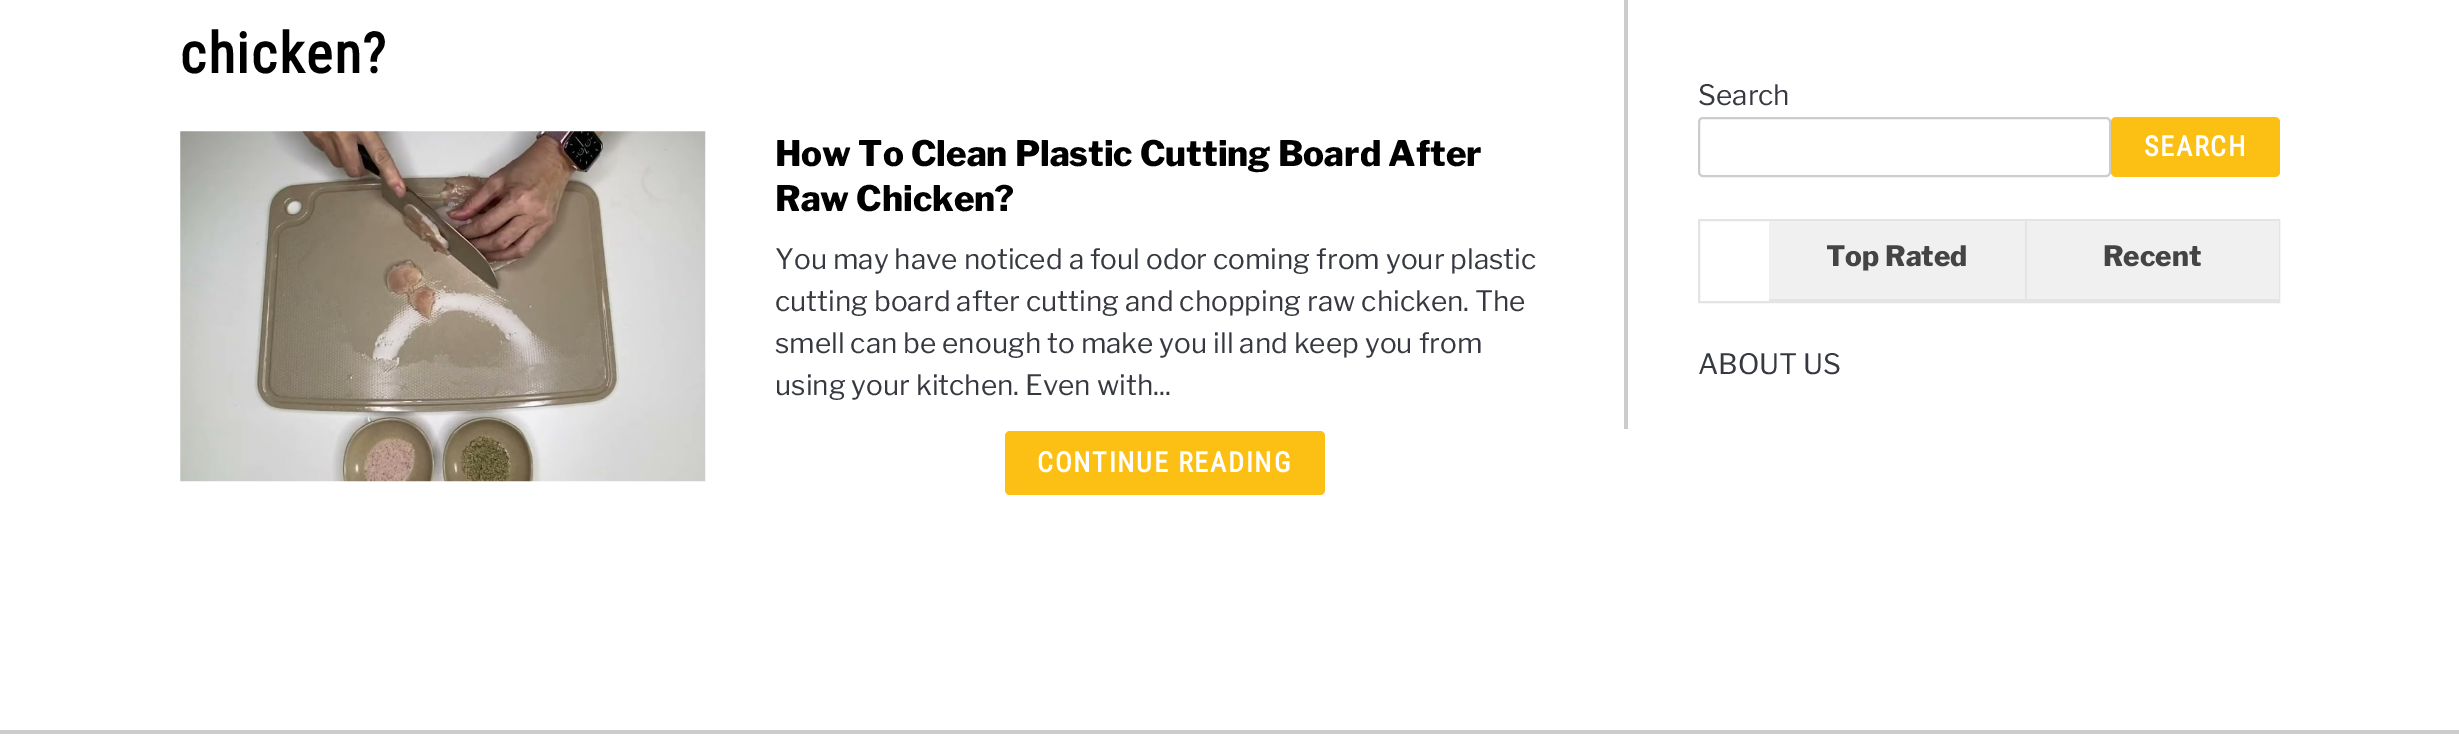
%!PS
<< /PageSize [2459 752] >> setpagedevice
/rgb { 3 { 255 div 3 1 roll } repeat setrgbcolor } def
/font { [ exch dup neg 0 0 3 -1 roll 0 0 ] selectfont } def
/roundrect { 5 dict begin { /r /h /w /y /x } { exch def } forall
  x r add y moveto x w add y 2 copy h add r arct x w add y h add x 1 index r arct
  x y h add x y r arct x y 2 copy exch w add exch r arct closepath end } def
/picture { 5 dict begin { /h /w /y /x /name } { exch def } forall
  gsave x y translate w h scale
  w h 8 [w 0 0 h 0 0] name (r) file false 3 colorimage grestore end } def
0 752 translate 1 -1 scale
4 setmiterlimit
255 255 255 rgb
0 0 2459 752 rectfill
(img/1.rgb) 180 131 526 351 picture
252 191 20 rgb
1005 431 320 64 5 roundrect fill
204 204 204 rgb
1624 0 4 429 rectfill
2 setlinewidth
1699 118 411 58 4 roundrect stroke
252 191 20 rgb
2111 117 169 60 5 roundrect fill
228 228 228 rgb
1699 220 580 82 rectstroke
[
  [1769 221 256 78 240 240 240]
  [1769 299 510 2 228 228 228]
  [2027 221 252 78 240 240 240]
  [2025 221 2 80 228 228 228]
  [0 730 2459 4 204 204 204]
] { aload pop rgb rectfill } forall
/RobotoCondensed-Bold 56 font
0 0 0 rgb
180 73 moveto 1.75 0 (chicken?) ashow
/LibreFranklin-ExtraBold 35 font
775 166 moveto (How To Clean Plastic Cutting Board After) show
775 211 moveto (Raw Chicken?) show
/LibreFranklin-Regular 28 font
54 57 64 rgb
[
  [(You may have noticed a foul odor coming from your plastic) 775 269]
  [(cutting board after cutting and chopping raw chicken. The) 775 311]
  [(smell can be enough to make you ill and keep you from) 775 353]
  [(using your kitchen. Even with...) 775 395]
] { aload pop moveto show } forall
/RobotoCondensed-Bold 28 font
255 255 255 rgb
1037 472 moveto 1.75 0 (CONTINUE READING) ashow
/LibreFranklin-Regular 28 font
54 57 64 rgb
1698 105 moveto (Search) show
/RobotoCondensed-Bold 28 font
255 255 255 rgb
2144 156 moveto 1.75 0 (SEARCH) ashow
/LibreFranklin-ExtraBold 28 font
68 68 68 rgb
1826 266 moveto (Top Rated) show
2103 266 moveto (Recent) show
/LibreFranklin-Regular 28 font
54 57 64 rgb
1698 374 moveto (ABOUT US) show
showpage
